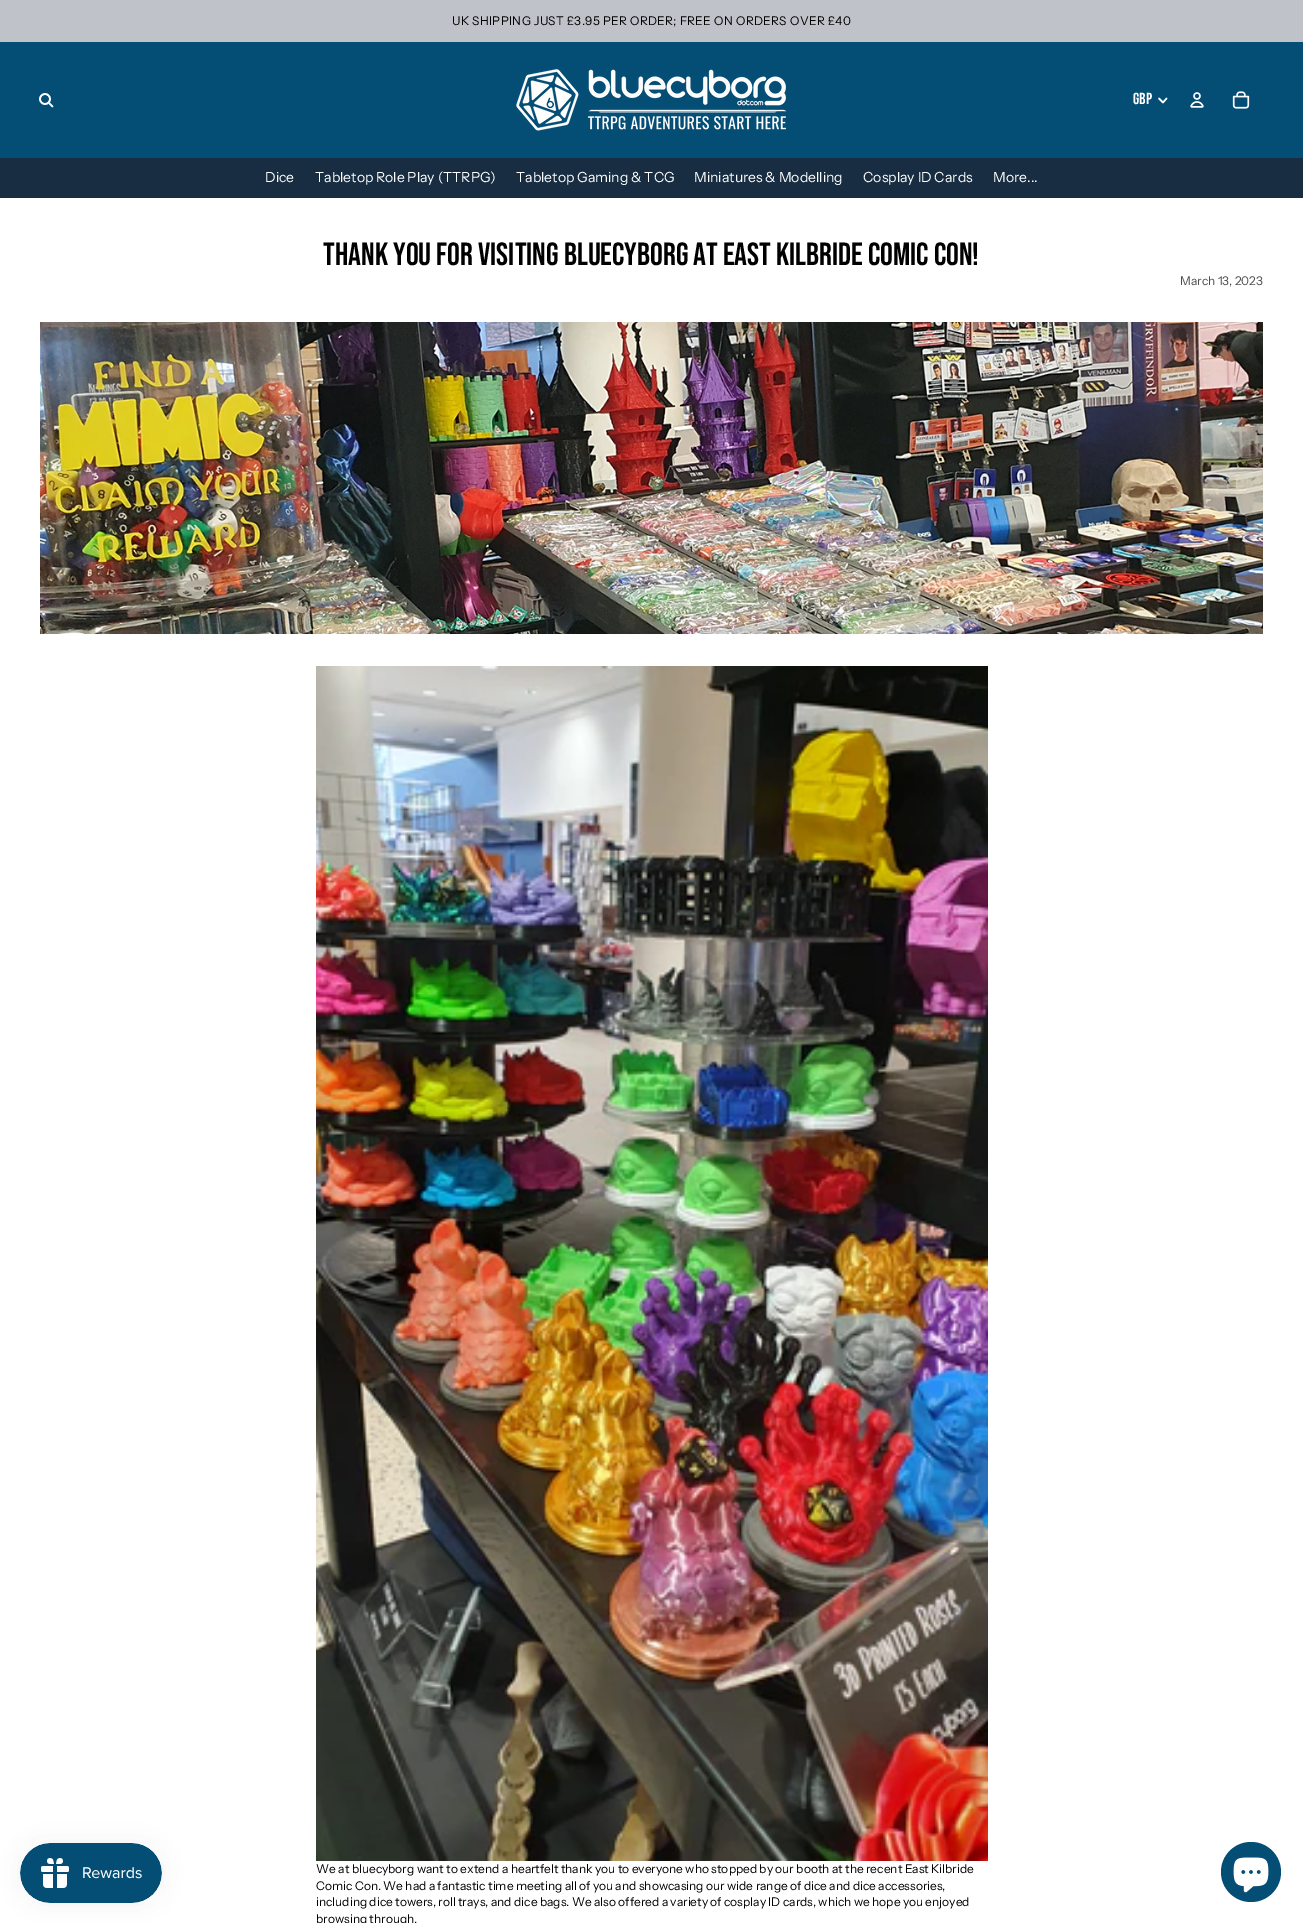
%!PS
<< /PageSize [1303 1923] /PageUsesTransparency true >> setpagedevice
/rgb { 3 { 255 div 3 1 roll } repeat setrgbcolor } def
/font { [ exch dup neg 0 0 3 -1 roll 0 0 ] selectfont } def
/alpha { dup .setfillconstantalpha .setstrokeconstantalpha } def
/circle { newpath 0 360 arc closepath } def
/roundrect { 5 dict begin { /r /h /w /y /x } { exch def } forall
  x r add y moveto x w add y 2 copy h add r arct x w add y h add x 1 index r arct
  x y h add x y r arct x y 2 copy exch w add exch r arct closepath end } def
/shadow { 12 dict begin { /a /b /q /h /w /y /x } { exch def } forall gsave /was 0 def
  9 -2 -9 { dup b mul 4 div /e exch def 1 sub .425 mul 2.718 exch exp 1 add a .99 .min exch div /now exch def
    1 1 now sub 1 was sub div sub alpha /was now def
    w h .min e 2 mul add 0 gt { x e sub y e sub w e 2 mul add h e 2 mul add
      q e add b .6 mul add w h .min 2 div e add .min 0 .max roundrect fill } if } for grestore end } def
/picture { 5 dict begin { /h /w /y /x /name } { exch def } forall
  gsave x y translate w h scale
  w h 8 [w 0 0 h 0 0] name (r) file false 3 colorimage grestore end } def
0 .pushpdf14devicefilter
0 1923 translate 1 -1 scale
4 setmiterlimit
255 255 255 rgb
0 0 1303 1923 rectfill
191 194 201 rgb
0 0 1303 42 rectfill
4 78 118 rgb
0 42 1303 116 rectfill
255 255 255 rgb
1.7 setlinewidth
45 99 5 circle stroke
1 setlinecap
1 setlinejoin
49 103 moveto 52.5 106.5 lineto stroke
(img/1.rgb) 516 69 271 62 picture
1.5 setlinewidth
1166.5 98.5 moveto 1163 102.5 lineto 1159 98.5 lineto stroke
(img/2.rgb) 1190 92 14 16 picture
(img/3.rgb) 1232 91 18 18 picture
24 45 65 rgb
0 158 1303 40 rectfill
0 0 0 rgb
20 1843 142 60 30 12.5 0.05 shadow
(img/4.rgb) 20 1843 142 60 picture
(img/5.rgb) 40 322 1223 312 picture
(img/6.rgb) 316 666 672 1195 picture
4 78 118 rgb
1251 1872 30 circle fill
(img/7.rgb) 1233 1857 36 36 picture
/InstrumentSans-Regular 12 font
0 0 0 rgb
452 25 moveto 0.35 0 (UK SHIPPING JUST £3.95 PER ORDER; FREE ON ORDERS OVER £40) ashow
/BebasNeue-Regular 16 font
255 255 255 rgb
1133 104 moveto (GBP) show
/InstrumentSans-Regular 14 font
[
  [(Dice) 265 182]
  [(Tabletop Role Play \(TTRPG\)) 315 182]
  [(Tabletop Gaming & TCG) 516 182]
  [(Miniatures & Modelling) 694 182]
  [(Cosplay ID Cards) 863 182]
  [(More...) 993 182]
] { aload pop moveto show } forall
/BebasNeue-Regular 32 font
0 0 0 rgb
323 265 moveto (Thank You for Visiting bluecyborg at East Kilbride Comic Con!) show
/InstrumentSans-Regular 12 font
77 77 77 rgb
1180 285 moveto (March 13, 2023) show
0 0 0 rgb
[
  [(We at bluecyborg want to extend a heartfelt thank you to everyone who stopped by our booth at the recent East Kilbride) 316 1873]
  [(Comic Con. We had a fantastic time meeting all of you and showcasing our wide range of dice and dice accessories,) 316 1890]
  [(including dice towers, roll trays, and dice bags. We also offered a variety of cosplay ID cards, which we hope you enjoyed) 316 1906]
  [(browsing through.) 316 1923]
] { aload pop moveto show } forall
.poppdf14devicefilter showpage
